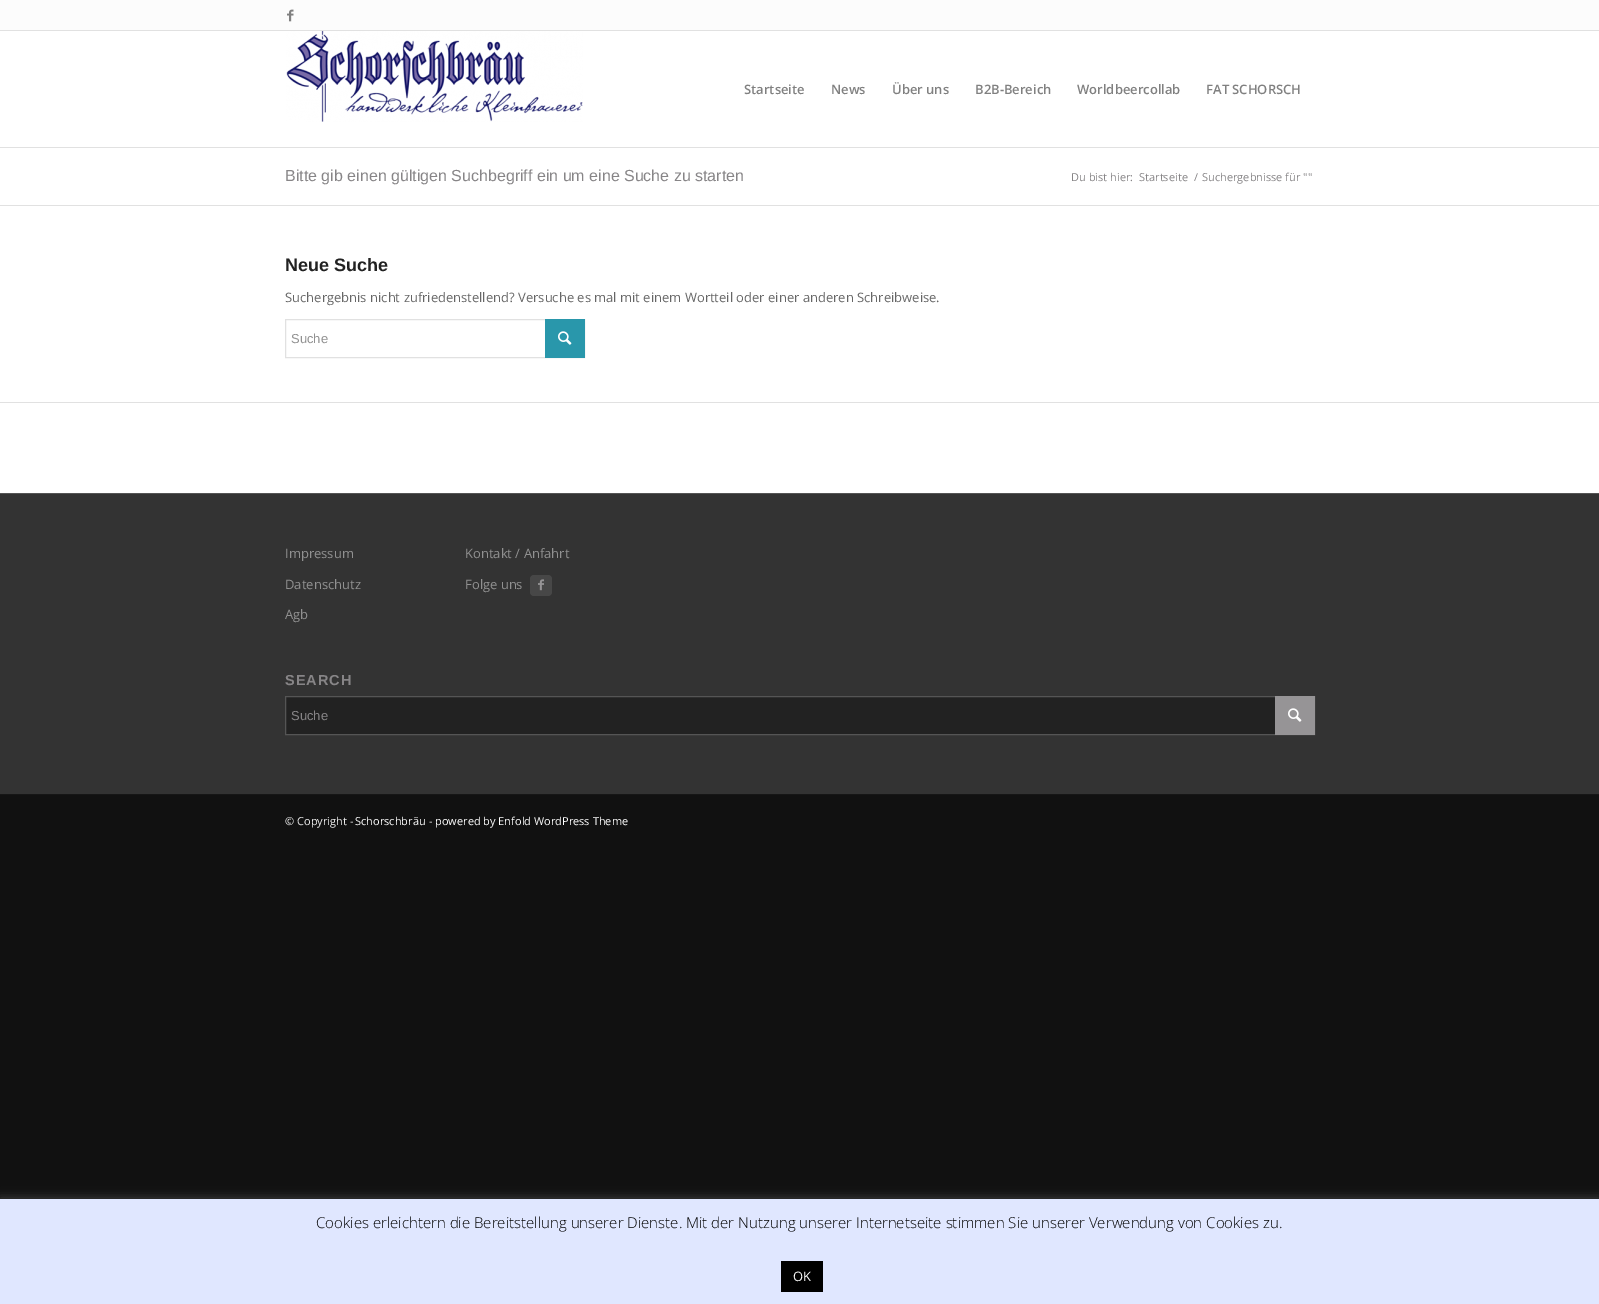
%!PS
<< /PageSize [1599 1304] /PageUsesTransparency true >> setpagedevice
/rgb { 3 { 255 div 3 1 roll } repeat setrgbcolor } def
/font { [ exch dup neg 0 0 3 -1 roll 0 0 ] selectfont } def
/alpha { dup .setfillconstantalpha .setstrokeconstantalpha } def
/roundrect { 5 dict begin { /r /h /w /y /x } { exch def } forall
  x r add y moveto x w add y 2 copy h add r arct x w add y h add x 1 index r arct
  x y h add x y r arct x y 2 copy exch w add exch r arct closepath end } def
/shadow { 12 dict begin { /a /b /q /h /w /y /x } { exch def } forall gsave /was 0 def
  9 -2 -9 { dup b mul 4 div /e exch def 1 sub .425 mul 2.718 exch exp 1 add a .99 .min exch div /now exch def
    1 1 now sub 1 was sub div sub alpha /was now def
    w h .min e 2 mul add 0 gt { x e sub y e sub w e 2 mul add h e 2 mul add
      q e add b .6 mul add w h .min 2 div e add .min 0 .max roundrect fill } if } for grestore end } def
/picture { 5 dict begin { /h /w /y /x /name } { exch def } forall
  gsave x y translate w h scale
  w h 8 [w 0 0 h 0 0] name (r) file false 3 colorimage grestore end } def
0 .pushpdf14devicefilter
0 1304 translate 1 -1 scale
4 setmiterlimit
17 17 17 rgb
0 0 1599 1304 rectfill
252 252 252 rgb
0 0 1599 30 rectfill
225 225 225 rgb
0 30 1599 1 rectfill
(img/1.rgb) 287 9 7 13 picture
0 147 1599 1 rectfill
255 255 255 rgb
0 31 1599 116 rectfill
(img/2.rgb) 286 31 297 91 picture
0 148 1599 345 rectfill
225 225 225 rgb
0 205 1599 1 rectfill
285.5 319.5 299 38 rectstroke
41 151 171 rgb
545 319 40 39 rectfill
(img/3.rgb) 558 331 14 14 picture
[
  [0 402 1599 1 225 225 225]
  [0 494 1599 300 51 51 51]
  [0 493 1599 1 85 85 85]
] { aload pop rgb rectfill } forall
71 71 71 rgb
530 575 22 21 4 roundrect fill
(img/4.rgb) 538 579 6 12 picture
34 34 34 rgb
286 697 989 37 rectfill
85 85 85 rgb
285.5 696.5 1029 38 rectstroke
150 148 150 rgb
1275 696 40 39 rectfill
(img/5.rgb) 1288 708 14 14 picture
22 22 22 rgb
0 794 1599 1 rectfill
172 171 171 rgb
0 1198 1599 105 0 5 0.3 shadow
224 231 255 rgb
0 1199 1599 105 rectfill
0 0 0 rgb
781 1261 42 31 rectfill
/OpenSans-SemiBold 13 font
128 128 128 rgb
[
  [(Startseite) 744 94]
  [(News) 831 94]
  [(Über uns) 892 94]
  [(B2B-Bereich) 975 94]
  [(Worldbeercollab) 1077 94]
  [(FAT SCHORSCH) 1206 94]
] { aload pop moveto show } forall
/LiberationSans-Regular 16 font
135 133 135 rgb
285 181 moveto (Bitte gib einen gültigen Suchbegriff ein um eine Suche zu starten) show
/OpenSans-Regular 11 font
[
  [(Du bist hier:) 1071 181]
  [(Startseite) 1139 181]
  [(/) 1194 181]
  [(Suchergebnisse für "") 1202 181]
] { aload pop moveto show } forall
/LiberationSans-Bold 18 font
34 34 34 rgb
285 271 moveto (Neue Suche) show
/OpenSans-Regular 13 font
102 102 102 rgb
285 302 moveto (Suchergebnis nicht zufriedenstellend? Versuche es mal mit einem Wortteil oder einer anderen Schreibweise.) show
/LiberationSans-Regular 13 font
145 145 145 rgb
291 343 moveto (Suche) show
/OpenSans-Regular 13 font
[
  [(Impressum) 285 558]
  [(Datenschutz) 285 589]
  [(Agb) 285 619]
  [(Kontakt / Anfahrt) 465 558]
  [(Folge uns) 465 589]
] { aload pop moveto show } forall
/LiberationSans-Bold 14.5 font
135 133 135 rgb
285 685 moveto 1 0 (SEARCH) ashow
/LiberationSans-Regular 13 font
291 720 moveto (Suche) show
/OpenSans-Regular 11 font
238 238 238 rgb
285 825 moveto (© Copyright -) show
255 255 255 rgb
355 825 moveto (Schorschbräu) show
238 238 238 rgb
429 825 moveto (-) show
255 255 255 rgb
435 825 moveto (powered by Enfold WordPress Theme) show
/OpenSans-Light 15 font
0 0 0 rgb
316 1228 moveto (Cookies erleichtern die Bereitstellung unserer Dienste. Mit der Nutzung unserer Internetseite stimmen Sie unserer Verwendung von Cookies zu.) show
/OpenSans-Regular 13 font
255 255 255 rgb
793 1281 moveto (OK) show
.poppdf14devicefilter showpage
